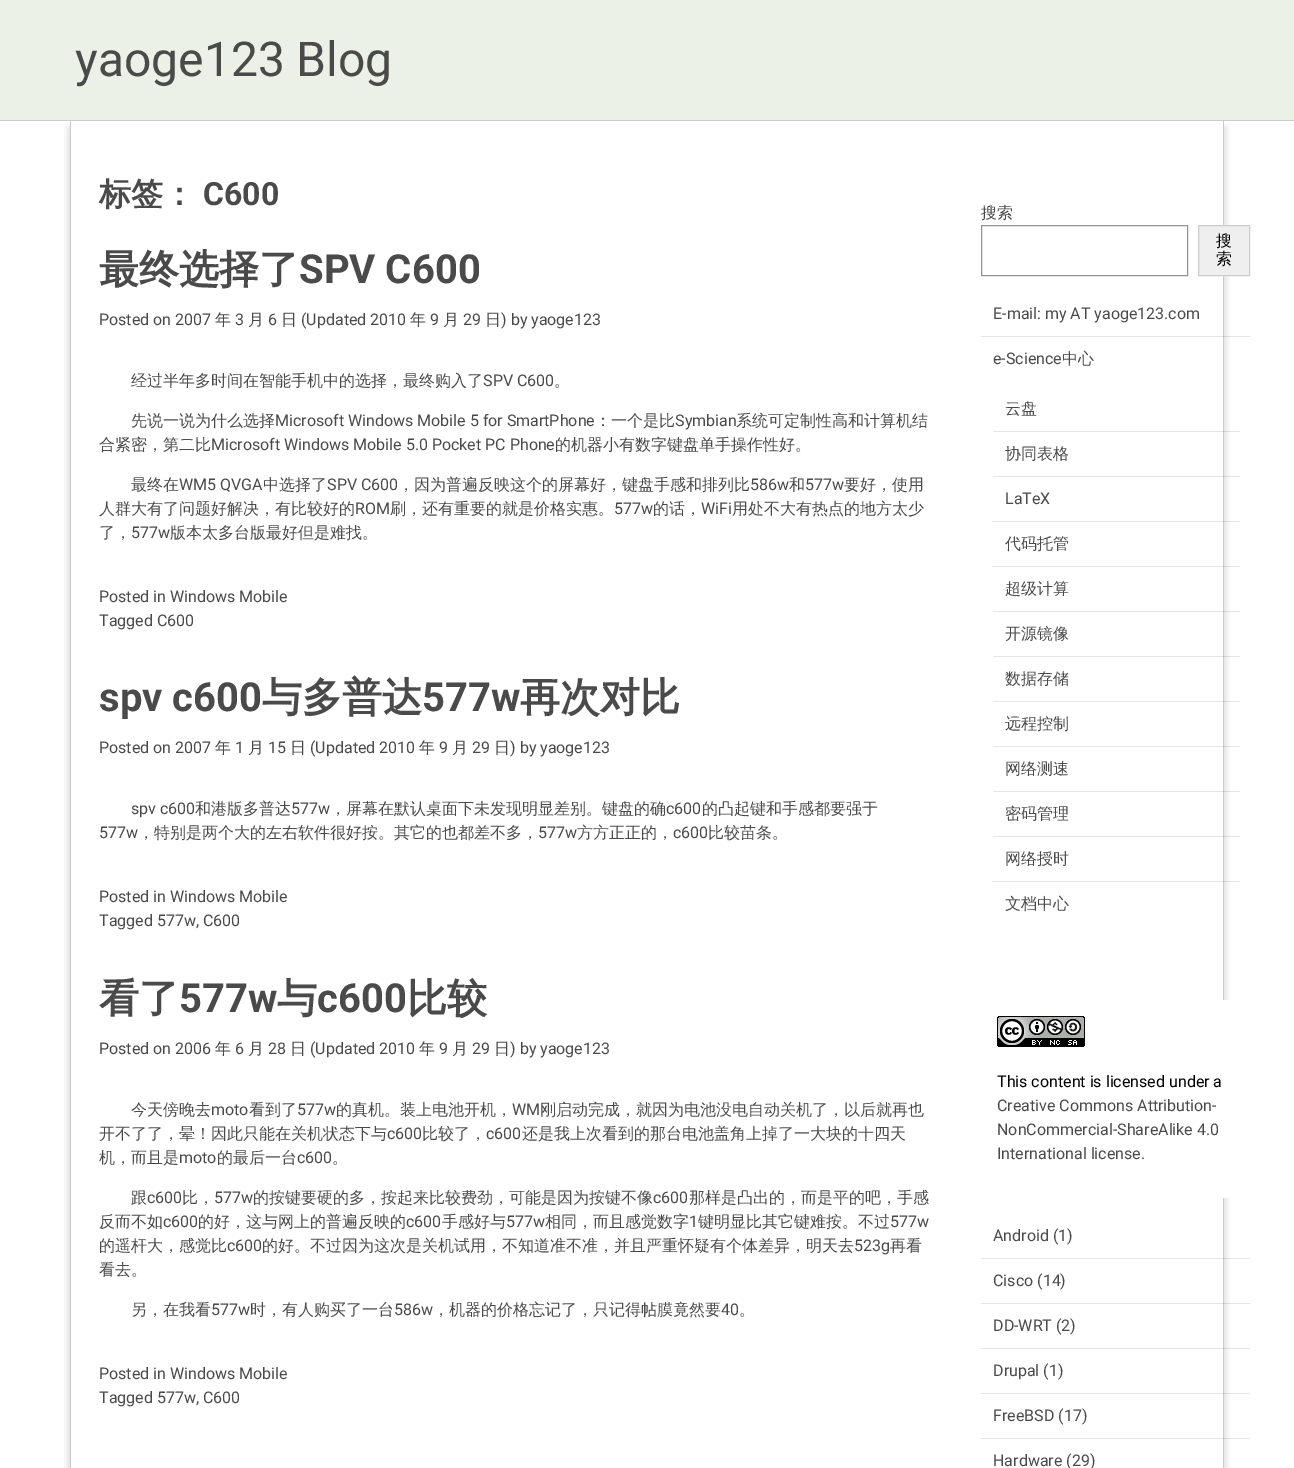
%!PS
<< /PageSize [1294 1468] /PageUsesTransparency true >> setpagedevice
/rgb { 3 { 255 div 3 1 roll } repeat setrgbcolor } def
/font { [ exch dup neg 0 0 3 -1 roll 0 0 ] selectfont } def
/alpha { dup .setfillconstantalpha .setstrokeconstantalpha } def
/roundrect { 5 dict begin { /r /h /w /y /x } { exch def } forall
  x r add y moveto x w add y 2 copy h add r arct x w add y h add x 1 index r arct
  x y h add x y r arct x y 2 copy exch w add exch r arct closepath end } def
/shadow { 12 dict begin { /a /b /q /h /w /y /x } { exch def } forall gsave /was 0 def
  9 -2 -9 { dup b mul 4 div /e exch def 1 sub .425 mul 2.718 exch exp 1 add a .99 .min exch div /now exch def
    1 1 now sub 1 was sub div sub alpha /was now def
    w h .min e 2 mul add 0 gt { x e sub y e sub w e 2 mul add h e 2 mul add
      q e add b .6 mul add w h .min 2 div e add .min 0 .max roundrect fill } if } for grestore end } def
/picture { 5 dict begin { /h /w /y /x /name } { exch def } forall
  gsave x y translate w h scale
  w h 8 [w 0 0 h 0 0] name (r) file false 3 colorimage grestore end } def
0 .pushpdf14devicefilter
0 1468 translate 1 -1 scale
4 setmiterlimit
255 255 255 rgb
0 0 1294 1468 rectfill
235 241 231 rgb
0 0 1294 120 rectfill
204 204 204 rgb
0 120 1294 1 rectfill
gsave
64 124 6 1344 rectclip
1 1 1 rgb
71 128 1140 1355 0 5 0.25 shadow
grestore
gsave
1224 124 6 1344 rectclip
1 1 1 rgb
83 128 1140 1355 0 5 0.25 shadow
grestore
1223 121 1 1347 rectfill
70 121 1 1347 rectfill
148 148 148 rgb
981.5 225.5 206 50 rectstroke
239 239 239 rgb
1198.5 225.5 moveto 1249.5 225.5 lineto 1249.5 275.5 lineto 1198.5 275.5 lineto closepath gsave fill grestore
204 204 204 rgb
stroke
0.1 alpha
[
  [981 336 269 1 0 0 0]
  [993 431 247 1 0 0 0]
  [993 476 247 1 0 0 0]
  [993 521 247 1 0 0 0]
  [993 566 247 1 0 0 0]
  [993 611 247 1 0 0 0]
  [993 656 247 1 0 0 0]
  [993 701 247 1 0 0 0]
  [993 746 247 1 0 0 0]
  [993 791 247 1 0 0 0]
  [993 836 247 1 0 0 0]
  [993 881 247 1 0 0 0]
] { aload pop rgb rectfill } forall
1 alpha
[
  [1223 1000 9 198 255 255 255]
] { aload pop rgb rectfill } forall
(img/1.rgb) 997 1016 88 31 picture
0.1 alpha
[
  [981 1258 269 1 0 0 0]
  [981 1303 269 1 0 0 0]
  [981 1348 269 1 0 0 0]
  [981 1393 269 1 0 0 0]
  [981 1438 269 1 0 0 0]
] { aload pop rgb rectfill } forall
/Roboto-Regular 48 font
1 alpha
74 74 74 rgb
75 76 moveto (yaoge123 Blog) show
/WenQuanYiZenHei-Bold 32 font
99 205 moveto (标签：) show
/Roboto-Bold 32 font
203 205 moveto (C600) show
/WenQuanYiZenHei-Bold 40 font
99 283 moveto (最终选择了) show
/Roboto-Bold 40 font
299 283 moveto (SPV C600) show
/Roboto-Regular 16 font
99 325 moveto (Posted on 2007) show
/WenQuanYiZenHei-Medium 16 font
215 325 moveto (年) show
/Roboto-Regular 16 font
235 325 moveto (3) show
/WenQuanYiZenHei-Medium 16 font
248 325 moveto (月) show
/Roboto-Regular 16 font
268 325 moveto (6) show
/WenQuanYiZenHei-Medium 16 font
281 325 moveto (日) show
/Roboto-Regular 16 font
301 325 moveto (\(Updated 2010) show
/WenQuanYiZenHei-Medium 16 font
410 325 moveto (年) show
/Roboto-Regular 16 font
430 325 moveto (9) show
/WenQuanYiZenHei-Medium 16 font
443 325 moveto (月) show
/Roboto-Regular 16 font
463 325 moveto (29) show
/WenQuanYiZenHei-Medium 16 font
485 325 moveto (日) show
/Roboto-Regular 16 font
501 325 moveto (\) by yaoge123) show
/WenQuanYiZenHei-Medium 16 font
131 386 moveto (经过半年多时间在智能手机中的选择，最终购入了) show
/Roboto-Regular 16 font
483 386 moveto (SPV C600) show
/WenQuanYiZenHei-Medium 16 font
554 386 moveto (。) show
131 426 moveto (先说一说为什么选择) show
/Roboto-Regular 16 font
275 426 moveto (Microsoft Windows Mobile 5 for SmartPhone) show
/WenQuanYiZenHei-Medium 16 font
595 426 moveto (：一个是比) show
/Roboto-Regular 16 font
675 426 moveto (Symbian) show
/WenQuanYiZenHei-Medium 16 font
736 426 moveto (系统可定制性高和计算机结) show
99 450 moveto (合紧密，第二比) show
/Roboto-Regular 16 font
211 450 moveto (Microsoft Windows Mobile 5.0 Pocket PC Phone) show
/WenQuanYiZenHei-Medium 16 font
555 450 moveto (的机器小有数字键盘单手操作性好。) show
131 490 moveto (最终在) show
/Roboto-Regular 16 font
179 490 moveto (WM5 QVGA) show
/WenQuanYiZenHei-Medium 16 font
263 490 moveto (中选择了) show
/Roboto-Regular 16 font
327 490 moveto (SPV C600) show
/WenQuanYiZenHei-Medium 16 font
398 490 moveto (，因为普遍反映这个的屏幕好，键盘手感和排列比) show
/Roboto-Regular 16 font
750 490 moveto (586w) show
/WenQuanYiZenHei-Medium 16 font
789 490 moveto (和) show
/Roboto-Regular 16 font
805 490 moveto (577w) show
/WenQuanYiZenHei-Medium 16 font
844 490 moveto (要好，使用) show
99 514 moveto (人群大有了问题好解决，有比较好的) show
/Roboto-Regular 16 font
355 514 moveto (ROM) show
/WenQuanYiZenHei-Medium 16 font
390 514 moveto (刷，还有重要的就是价格实惠。) show
/Roboto-Regular 16 font
614 514 moveto (577w) show
/WenQuanYiZenHei-Medium 16 font
653 514 moveto (的话，) show
/Roboto-Regular 16 font
701 514 moveto (WiFi) show
/WenQuanYiZenHei-Medium 16 font
732 514 moveto (用处不大有热点的地方太少) show
99 538 moveto (了，) show
/Roboto-Regular 16 font
131 538 moveto (577w) show
/WenQuanYiZenHei-Medium 16 font
170 538 moveto (版本太多台版最好但是难找。) show
/Roboto-Regular 16 font
99 602 moveto (Posted in Windows Mobile) show
99 626 moveto (Tagged C600) show
/Roboto-Bold 40 font
99 711 moveto (spv c600) show
/WenQuanYiZenHei-Bold 40 font
262 711 moveto (与多普达) show
/Roboto-Bold 40 font
422 711 moveto (577w) show
/WenQuanYiZenHei-Bold 40 font
520 711 moveto (再次对比) show
/Roboto-Regular 16 font
99 753 moveto (Posted on 2007) show
/WenQuanYiZenHei-Medium 16 font
215 753 moveto (年) show
/Roboto-Regular 16 font
235 753 moveto (1) show
/WenQuanYiZenHei-Medium 16 font
248 753 moveto (月) show
/Roboto-Regular 16 font
268 753 moveto (15) show
/WenQuanYiZenHei-Medium 16 font
290 753 moveto (日) show
/Roboto-Regular 16 font
310 753 moveto (\(Updated 2010) show
/WenQuanYiZenHei-Medium 16 font
419 753 moveto (年) show
/Roboto-Regular 16 font
439 753 moveto (9) show
/WenQuanYiZenHei-Medium 16 font
452 753 moveto (月) show
/Roboto-Regular 16 font
472 753 moveto (29) show
/WenQuanYiZenHei-Medium 16 font
494 753 moveto (日) show
/Roboto-Regular 16 font
510 753 moveto (\) by yaoge123) show
131 814 moveto (spv c600) show
/WenQuanYiZenHei-Medium 16 font
195 814 moveto (和港版多普达) show
/Roboto-Regular 16 font
291 814 moveto (577w) show
/WenQuanYiZenHei-Medium 16 font
330 814 moveto (，屏幕在默认桌面下未发现明显差别。键盘的确) show
/Roboto-Regular 16 font
666 814 moveto (c600) show
/WenQuanYiZenHei-Medium 16 font
702 814 moveto (的凸起键和手感都要强于) show
/Roboto-Regular 16 font
99 838 moveto (577w) show
/WenQuanYiZenHei-Medium 16 font
138 838 moveto (，特别是两个大的左右软件很好按。其它的也都差不多，) show
/Roboto-Regular 16 font
538 838 moveto (577w) show
/WenQuanYiZenHei-Medium 16 font
577 838 moveto (方方正正的，) show
/Roboto-Regular 16 font
673 838 moveto (c600) show
/WenQuanYiZenHei-Medium 16 font
708 838 moveto (比较苗条。) show
/Roboto-Regular 16 font
99 902 moveto (Posted in Windows Mobile) show
99 926 moveto (Tagged 577w, C600) show
/WenQuanYiZenHei-Bold 40 font
99 1012 moveto (看了) show
/Roboto-Bold 40 font
179 1012 moveto (577w) show
/WenQuanYiZenHei-Bold 40 font
277 1012 moveto (与) show
/Roboto-Bold 40 font
317 1012 moveto (c600) show
/WenQuanYiZenHei-Bold 40 font
407 1012 moveto (比较) show
/Roboto-Regular 16 font
99 1054 moveto (Posted on 2006) show
/WenQuanYiZenHei-Medium 16 font
215 1054 moveto (年) show
/Roboto-Regular 16 font
235 1054 moveto (6) show
/WenQuanYiZenHei-Medium 16 font
248 1054 moveto (月) show
/Roboto-Regular 16 font
268 1054 moveto (28) show
/WenQuanYiZenHei-Medium 16 font
290 1054 moveto (日) show
/Roboto-Regular 16 font
310 1054 moveto (\(Updated 2010) show
/WenQuanYiZenHei-Medium 16 font
419 1054 moveto (年) show
/Roboto-Regular 16 font
439 1054 moveto (9) show
/WenQuanYiZenHei-Medium 16 font
452 1054 moveto (月) show
/Roboto-Regular 16 font
472 1054 moveto (29) show
/WenQuanYiZenHei-Medium 16 font
494 1054 moveto (日) show
/Roboto-Regular 16 font
510 1054 moveto (\) by yaoge123) show
/WenQuanYiZenHei-Medium 16 font
131 1115 moveto (今天傍晚去) show
/Roboto-Regular 16 font
211 1115 moveto (moto) show
/WenQuanYiZenHei-Medium 16 font
249 1115 moveto (看到了) show
/Roboto-Regular 16 font
297 1115 moveto (577w) show
/WenQuanYiZenHei-Medium 16 font
336 1115 moveto (的真机。装上电池开机，) show
/Roboto-Regular 16 font
512 1115 moveto (WM) show
/WenQuanYiZenHei-Medium 16 font
540 1115 moveto (刚启动完成，就因为电池没电自动关机了，以后就再也) show
99 1139 moveto (开不了了，晕！因此只能在关机状态下与) show
/Roboto-Regular 16 font
387 1139 moveto (c600) show
/WenQuanYiZenHei-Medium 16 font
422 1139 moveto (比较了，) show
/Roboto-Regular 16 font
486 1139 moveto (c600) show
/WenQuanYiZenHei-Medium 16 font
522 1139 moveto (还是我上次看到的那台电池盖角上掉了一大块的十四天) show
99 1163 moveto (机，而且是) show
/Roboto-Regular 16 font
179 1163 moveto (moto) show
/WenQuanYiZenHei-Medium 16 font
217 1163 moveto (的最后一台) show
/Roboto-Regular 16 font
297 1163 moveto (c600) show
/WenQuanYiZenHei-Medium 16 font
332 1163 moveto (。) show
131 1203 moveto (跟) show
/Roboto-Regular 16 font
147 1203 moveto (c600) show
/WenQuanYiZenHei-Medium 16 font
182 1203 moveto (比，) show
/Roboto-Regular 16 font
214 1203 moveto (577w) show
/WenQuanYiZenHei-Medium 16 font
253 1203 moveto (的按键要硬的多，按起来比较费劲，可能是因为按键不像) show
/Roboto-Regular 16 font
653 1203 moveto (c600) show
/WenQuanYiZenHei-Medium 16 font
689 1203 moveto (那样是凸出的，而是平的吧，手感) show
99 1227 moveto (反而不如) show
/Roboto-Regular 16 font
163 1227 moveto (c600) show
/WenQuanYiZenHei-Medium 16 font
198 1227 moveto (的好，这与网上的普遍反映的) show
/Roboto-Regular 16 font
406 1227 moveto (c600) show
/WenQuanYiZenHei-Medium 16 font
442 1227 moveto (手感好与) show
/Roboto-Regular 16 font
506 1227 moveto (577w) show
/WenQuanYiZenHei-Medium 16 font
545 1227 moveto (相同，而且感觉数字) show
/Roboto-Regular 16 font
689 1227 moveto (1) show
/WenQuanYiZenHei-Medium 16 font
698 1227 moveto (键明显比其它键难按。不过) show
/Roboto-Regular 16 font
890 1227 moveto (577w) show
/WenQuanYiZenHei-Medium 16 font
99 1251 moveto (的遥杆大，感觉比) show
/Roboto-Regular 16 font
227 1251 moveto (c600) show
/WenQuanYiZenHei-Medium 16 font
262 1251 moveto (的好。不过因为这次是关机试用，不知道准不准，并且严重怀疑有个体差异，明天去) show
/Roboto-Regular 16 font
854 1251 moveto (523g) show
/WenQuanYiZenHei-Medium 16 font
[
  [(再看) 890 1251]
  [(看去。) 99 1275]
  [(另，在我看) 131 1315]
] { aload pop moveto show } forall
/Roboto-Regular 16 font
211 1315 moveto (577w) show
/WenQuanYiZenHei-Medium 16 font
250 1315 moveto (时，有人购买了一台) show
/Roboto-Regular 16 font
394 1315 moveto (586w) show
/WenQuanYiZenHei-Medium 16 font
433 1315 moveto (，机器的价格忘记了，只记得帖膜竟然要) show
/Roboto-Regular 16 font
721 1315 moveto (40) show
/WenQuanYiZenHei-Medium 16 font
739 1315 moveto (。) show
/Roboto-Regular 16 font
99 1379 moveto (Posted in Windows Mobile) show
99 1403 moveto (Tagged 577w, C600) show
/WenQuanYiZenHei-Medium 16 font
981 218 moveto (搜索) show
0 0 0 rgb
1216 246 moveto (搜) show
1216 264 moveto (索) show
/Roboto-Regular 16 font
74 74 74 rgb
993 319 moveto (E-mail: my AT yaoge123.com) show
993 364 moveto (e-Science) show
/WenQuanYiZenHei-Medium 16 font
[
  [(中心) 1062 364]
  [(云盘) 1005 414]
  [(协同表格) 1005 459]
] { aload pop moveto show } forall
/Roboto-Regular 16 font
1005 504 moveto (LaTeX) show
/WenQuanYiZenHei-Medium 16 font
[
  [(代码托管) 1005 549]
  [(超级计算) 1005 594]
  [(开源镜像) 1005 639]
  [(数据存储) 1005 684]
  [(远程控制) 1005 729]
  [(网络测速) 1005 774]
  [(密码管理) 1005 819]
  [(网络授时) 1005 864]
  [(文档中心) 1005 909]
] { aload pop moveto show } forall
/Roboto-Regular 16 font
0 0 0 rgb
997 1087 moveto (This content is licensed under a) show
74 74 74 rgb
[
  [(Creative Commons Attribution-) 997 1111]
  [(NonCommercial-ShareAlike 4.0) 997 1135]
  [(International license.) 997 1159]
  [(Android \(1\)) 993 1241]
  [(Cisco \(14\)) 993 1286]
  [(DD-WRT \(2\)) 993 1331]
  [(Drupal \(1\)) 993 1376]
  [(FreeBSD \(17\)) 993 1421]
  [(Hardware \(29\)) 993 1466]
] { aload pop moveto show } forall
.poppdf14devicefilter showpage
